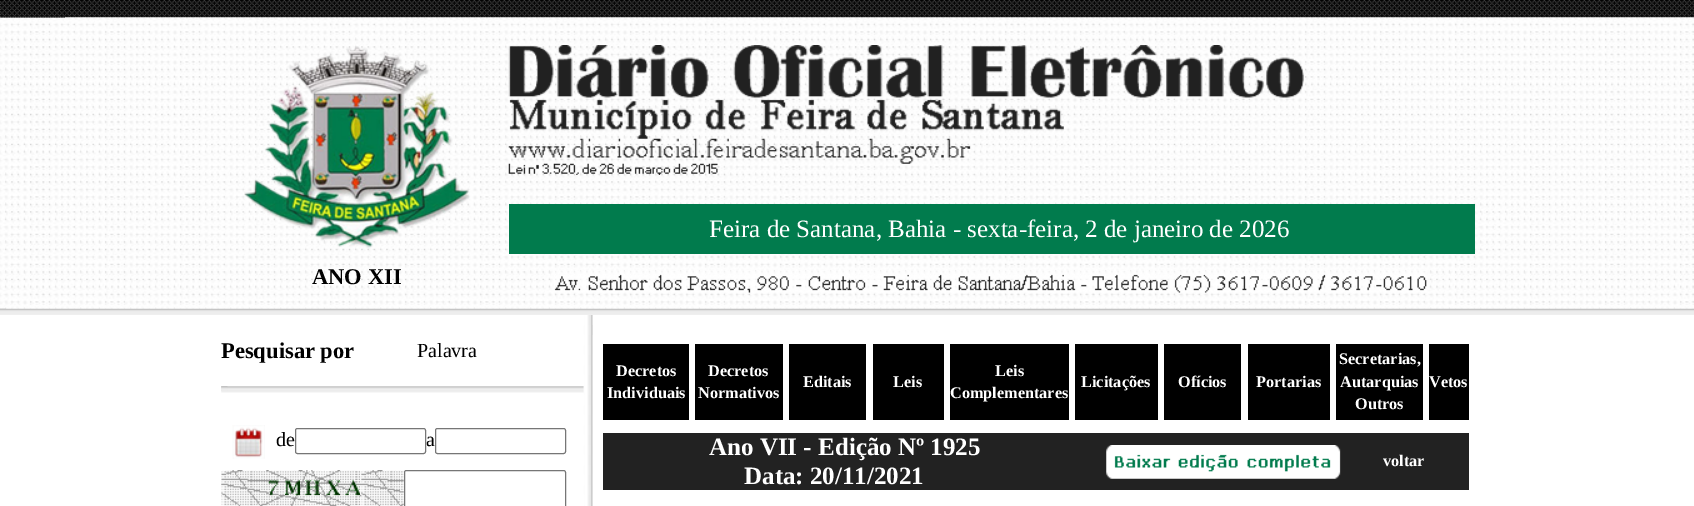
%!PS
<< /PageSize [1694 506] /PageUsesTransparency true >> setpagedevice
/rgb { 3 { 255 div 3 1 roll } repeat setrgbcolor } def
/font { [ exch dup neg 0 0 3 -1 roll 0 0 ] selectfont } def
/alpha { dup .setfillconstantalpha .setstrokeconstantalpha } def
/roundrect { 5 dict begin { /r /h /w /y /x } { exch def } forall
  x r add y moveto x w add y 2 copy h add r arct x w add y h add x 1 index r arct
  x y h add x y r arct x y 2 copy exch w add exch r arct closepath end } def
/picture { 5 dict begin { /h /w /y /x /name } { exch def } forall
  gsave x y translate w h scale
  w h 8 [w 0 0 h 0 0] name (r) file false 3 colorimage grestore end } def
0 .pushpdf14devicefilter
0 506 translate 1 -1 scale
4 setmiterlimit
255 255 255 rgb
0 0 1694 506 rectfill
(img/1.rgb) 0 0 1694 18 picture
(img/3.rgb) 0 17 1694 292 picture
(img/2.rgb) 0 0 65 18 picture
(img/4.rgb) 508 45 796 130 picture
1 123 77 rgb
509 204 966 50 rectfill
(img/5.rgb) 554 271 873 22 picture
(img/6.rgb) 244 46 226 203 picture
(img/7.rgb) 0 308 1694 7 picture
0.25 alpha
191 191 191 rgb
0 308 6 1 rectfill
1 alpha
(img/8.rgb) 221 386 363 7 picture
(img/9.rgb) 221 386 7 5 picture
(img/10.rgb) 232 425 33 34 picture
118 118 118 rgb
295.5 428.5 130 25 2 roundrect stroke
435.5 428.5 130 25 2 roundrect stroke
(img/11.rgb) 221 470 183 36 picture
(img/12.rgb) 268 479 11 17 picture
(img/13.rgb) 285 479 15 17 picture
(img/14.rgb) 305 479 15 17 picture
(img/15.rgb) 326 479 14 17 picture
(img/16.rgb) 345 479 15 17 picture
404.5 470.5 161 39 2 roundrect stroke
(img/17.rgb) 583 315 10 191 picture
[
  [592 325 1 10 218 218 218]
  [603 344 86 76 0 0 0]
  [695 344 88 76 0 0 0]
  [789 344 77 76 0 0 0]
  [873 344 71 76 0 0 0]
  [950 344 119 76 0 0 0]
  [1075 344 83 76 0 0 0]
  [1164 344 77 76 0 0 0]
  [1248 344 82 76 0 0 0]
  [1336 344 87 76 0 0 0]
  [1429 344 40 76 0 0 0]
  [603 433 866 57 34 34 34]
] { aload pop rgb rectfill } forall
(img/18.rgb) 1106 445 235 34 picture
/LiberationSerif-Regular 25 font
255 255 255 rgb
709 237 moveto (Feira de Santana, Bahia - sexta-feira, 2 de janeiro de 2026) show
/LiberationSerif-Bold 22.5 font
0 0 0 rgb
312 284 moveto (ANO XII) show
221 358 moveto (Pesquisar por) show
/LiberationSerif-Regular 20 font
[
  [(Palavra) 417 357]
  [(de) 276 446]
  [(a) 426 446]
] { aload pop moveto show } forall
/LiberationSerif-Bold 16.25 font
255 255 255 rgb
[
  [(Decretos) 616 376]
  [(Individuais) 607 398]
  [(Decretos) 708 376]
  [(Normativos) 698 398]
  [(Editais) 803 387]
  [(Leis) 893 387]
  [(Leis) 995 376]
  [(Complementares) 950 398]
  [(Licitações) 1081 387]
  [(Ofícios) 1178 387]
  [(Portarias) 1256 387]
  [(Secretarias,) 1339 364]
  [(Autarquias) 1340 387]
  [(Outros) 1355 409]
  [(Vetos) 1429 387]
] { aload pop moveto show } forall
/LiberationSerif-Bold 25 font
709 455 moveto (Ano VII - Edição Nº 1925) show
744 484 moveto (Data: 20/11/2021) show
/LiberationSerif-Bold 16.25 font
1383 466 moveto (voltar) show
.poppdf14devicefilter showpage
